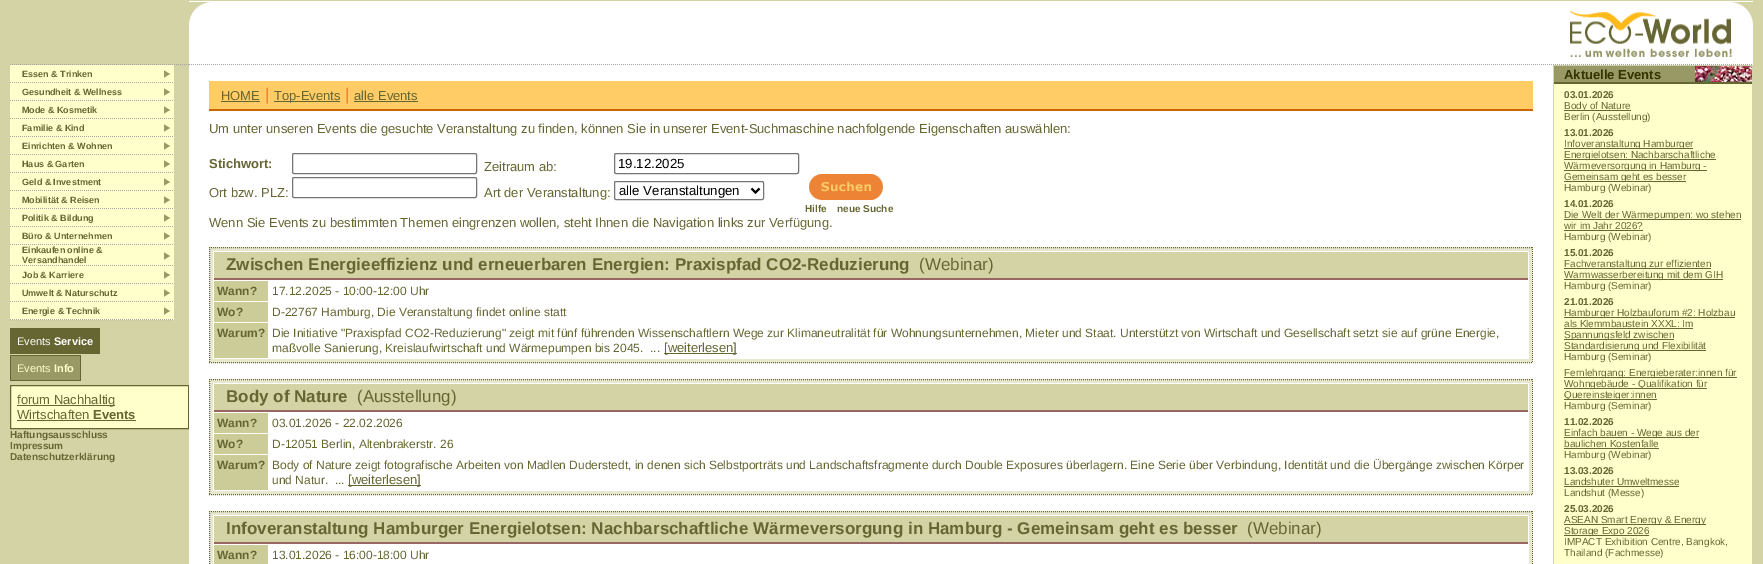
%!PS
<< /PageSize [1763 564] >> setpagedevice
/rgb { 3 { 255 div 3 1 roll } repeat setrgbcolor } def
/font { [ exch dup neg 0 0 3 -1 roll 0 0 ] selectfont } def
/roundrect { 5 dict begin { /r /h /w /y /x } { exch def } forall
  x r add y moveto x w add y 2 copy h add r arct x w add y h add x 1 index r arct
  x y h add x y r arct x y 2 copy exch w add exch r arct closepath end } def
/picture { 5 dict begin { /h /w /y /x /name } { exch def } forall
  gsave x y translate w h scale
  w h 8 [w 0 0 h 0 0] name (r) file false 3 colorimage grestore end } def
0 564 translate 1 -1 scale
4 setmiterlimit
211 211 166 rgb
0 0 1763 564 rectfill
166 166 166 rgb
[1 1] 0 setdash
10 64.5 moveto 189 64.5 lineto stroke
255 255 255 rgb
189 1 1564 64 rectfill
166 166 166 rgb
189 64.5 moveto 1753 64.5 lineto stroke
211 211 166 rgb
189 2 16 16 rectfill
(img/1.rgb) 189 2 24 62 picture
(img/2.rgb) 1570 11 162 46 picture
(img/3.rgb) 1732 2 21 22 picture
255 255 204 rgb
10 65 164 18 rectfill
166 166 166 rgb
10 82.5 moveto 22 82.5 lineto stroke
22 82.5 moveto 164 82.5 lineto stroke
164 82.5 moveto 174 82.5 lineto stroke
(img/4.rgb) 164 70 7 8 picture
255 255 204 rgb
10 83 164 18 rectfill
166 166 166 rgb
10 100.5 moveto 22 100.5 lineto stroke
22 100.5 moveto 164 100.5 lineto stroke
164 100.5 moveto 174 100.5 lineto stroke
(img/4.rgb) 164 88 7 8 picture
255 255 204 rgb
10 101 164 18 rectfill
166 166 166 rgb
10 118.5 moveto 22 118.5 lineto stroke
22 118.5 moveto 164 118.5 lineto stroke
164 118.5 moveto 174 118.5 lineto stroke
(img/4.rgb) 164 106 7 8 picture
255 255 204 rgb
10 119 164 18 rectfill
166 166 166 rgb
10 136.5 moveto 22 136.5 lineto stroke
22 136.5 moveto 164 136.5 lineto stroke
164 136.5 moveto 174 136.5 lineto stroke
(img/4.rgb) 164 124 7 8 picture
255 255 204 rgb
10 137 164 18 rectfill
166 166 166 rgb
10 154.5 moveto 22 154.5 lineto stroke
22 154.5 moveto 164 154.5 lineto stroke
164 154.5 moveto 174 154.5 lineto stroke
(img/4.rgb) 164 142 7 8 picture
255 255 204 rgb
10 155 164 18 rectfill
166 166 166 rgb
10 172.5 moveto 22 172.5 lineto stroke
22 172.5 moveto 164 172.5 lineto stroke
164 172.5 moveto 174 172.5 lineto stroke
(img/4.rgb) 164 160 7 8 picture
255 255 204 rgb
10 173 164 18 rectfill
166 166 166 rgb
10 190.5 moveto 22 190.5 lineto stroke
22 190.5 moveto 164 190.5 lineto stroke
164 190.5 moveto 174 190.5 lineto stroke
(img/4.rgb) 164 178 7 8 picture
255 255 204 rgb
10 191 164 18 rectfill
166 166 166 rgb
10 208.5 moveto 22 208.5 lineto stroke
22 208.5 moveto 164 208.5 lineto stroke
164 208.5 moveto 174 208.5 lineto stroke
(img/4.rgb) 164 196 7 8 picture
255 255 204 rgb
10 209 164 18 rectfill
166 166 166 rgb
10 226.5 moveto 22 226.5 lineto stroke
22 226.5 moveto 164 226.5 lineto stroke
164 226.5 moveto 174 226.5 lineto stroke
(img/4.rgb) 164 214 7 8 picture
255 255 204 rgb
10 227 164 18 rectfill
166 166 166 rgb
10 244.5 moveto 22 244.5 lineto stroke
22 244.5 moveto 164 244.5 lineto stroke
164 244.5 moveto 174 244.5 lineto stroke
(img/4.rgb) 164 232 7 8 picture
255 255 204 rgb
10 245 164 21 rectfill
166 166 166 rgb
10 265.5 moveto 22 265.5 lineto stroke
22 265.5 moveto 164 265.5 lineto stroke
164 265.5 moveto 174 265.5 lineto stroke
(img/4.rgb) 164 252 7 8 picture
255 255 204 rgb
10 266 164 18 rectfill
166 166 166 rgb
10 283.5 moveto 22 283.5 lineto stroke
22 283.5 moveto 164 283.5 lineto stroke
164 283.5 moveto 174 283.5 lineto stroke
(img/4.rgb) 164 271 7 8 picture
255 255 204 rgb
10 284 164 18 rectfill
166 166 166 rgb
10 301.5 moveto 22 301.5 lineto stroke
22 301.5 moveto 164 301.5 lineto stroke
164 301.5 moveto 174 301.5 lineto stroke
(img/4.rgb) 164 289 7 8 picture
255 255 204 rgb
10 302 164 18 rectfill
166 166 166 rgb
10 319.5 moveto 22 319.5 lineto stroke
22 319.5 moveto 164 319.5 lineto stroke
164 319.5 moveto 174 319.5 lineto stroke
(img/4.rgb) 164 307 7 8 picture
[
  [10 328 90 26 102 102 51]
  [11 356 69 24 153 153 102]
  [10 355 71 1 102 102 51]
  [10 380 44 1 102 102 51]
  [10 355 1 26 102 102 51]
  [80 355 1 26 102 102 51]
  [54 380 27 1 102 102 51]
] { aload pop rgb rectfill } forall
255 255 204 rgb
10.5 385.5 moveto 188.5 385.5 lineto 188.5 428.5 lineto 10.5 428.5 lineto closepath gsave fill grestore
102 102 51 rgb
[] 0 setdash
stroke
[
  [17 405 98 1 102 102 51]
  [17 420 119 1 102 102 51]
  [189 65 20 499 255 255 255]
  [209 65 1324 446 255 255 255]
  [209 81 1324 28 255 204 102]
  [209 109 1324 2 204 102 0]
  [221 101 39 1 102 102 51]
  [274 101 66 1 102 102 51]
  [354 101 64 1 102 102 51]
] { aload pop rgb rectfill } forall
118 118 118 rgb
292.5 153.5 184 20 1.5 roundrect stroke
614.5 153.5 184 20 1.5 roundrect stroke
292.5 177.5 184 20 1.5 roundrect stroke
614.5 181.5 149 18 1.5 roundrect stroke
0 0 0 rgb
2 setlinewidth
751.5 188.5 moveto 755.5 192.5 lineto 759.5 188.5 lineto stroke
(img/5.rgb) 809 174 74 26 picture
232 232 208 rgb
209 247 1324 116 rectfill
102 102 51 rgb
1 setlinewidth
[1 1] 0 setdash
209 247.5 moveto 1533 247.5 lineto stroke
1532.5 247 moveto 1532.5 363 lineto stroke
209 362.5 moveto 1533 362.5 lineto stroke
209.5 247 moveto 209.5 363 lineto stroke
[
  [213 251 1316 108 255 255 255]
  [214 252 1314 26 211 211 166]
  [214 278 1314 2 153 102 102]
  [214 281 54 20 204 204 153]
  [214 302 54 20 204 204 153]
  [214 323 54 35 204 204 153]
  [664 353 73 1 102 102 51]
  [209 379 1324 116 232 232 208]
] { aload pop rgb rectfill } forall
102 102 51 rgb
209 379.5 moveto 1533 379.5 lineto stroke
1532.5 379 moveto 1532.5 495 lineto stroke
209 494.5 moveto 1533 494.5 lineto stroke
209.5 379 moveto 209.5 495 lineto stroke
[
  [213 383 1316 108 255 255 255]
  [214 384 1314 26 211 211 166]
  [214 410 1314 2 153 102 102]
  [214 413 54 20 204 204 153]
  [214 434 54 20 204 204 153]
  [214 455 54 35 204 204 153]
  [348 485 73 1 102 102 51]
  [209 511 1324 53 232 232 208]
] { aload pop rgb rectfill } forall
102 102 51 rgb
209 511.5 moveto 1533 511.5 lineto stroke
1532.5 511 moveto 1532.5 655 lineto stroke
209.5 511 moveto 209.5 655 lineto stroke
[
  [213 515 1316 49 255 255 255]
  [214 516 1314 26 211 211 166]
  [214 542 1314 2 153 102 102]
  [214 545 54 19 204 204 153]
  [1533 65 20 499 255 255 255]
  [1554 84 198 480 255 255 204]
  [1554 66 141 16 153 153 102]
  [1554 82 198 2 102 102 51]
] { aload pop rgb rectfill } forall
(img/6.rgb) 1695 66 57 16 picture
[
  [1564 110 67 1 102 102 51]
  [1564 148 129 1 102 102 51]
  [1564 159 152 1 102 102 51]
  [1564 170 143 1 102 102 51]
  [1564 181 122 1 102 102 51]
  [1564 219 177 1 102 102 51]
  [1564 230 79 1 102 102 51]
  [1564 268 147 1 102 102 51]
  [1564 279 159 1 102 102 51]
  [1564 317 171 1 102 102 51]
  [1564 328 129 1 102 102 51]
  [1564 339 110 1 102 102 51]
  [1564 350 142 1 102 102 51]
  [1564 377 173 1 102 102 51]
  [1564 388 143 1 102 102 51]
  [1564 399 93 1 102 102 51]
  [1564 437 135 1 102 102 51]
  [1564 448 95 1 102 102 51]
  [1564 486 115 1 102 102 51]
  [1564 524 142 1 102 102 51]
  [1564 535 85 1 102 102 51]
] { aload pop rgb rectfill } forall
/LiberationSans-Bold 9 font
[
  [(Essen & Trinken) 22 77]
  [(Gesundheit & Wellness) 22 95]
  [(Mode & Kosmetik) 22 113]
  [(Familie & Kind) 22 131]
  [(Einrichten & Wohnen) 22 149]
  [(Haus & Garten) 22 167]
  [(Geld & Investment) 22 185]
  [(Mobilität & Reisen) 22 203]
  [(Politik & Bildung) 22 221]
  [(Büro & Unternehmen) 22 239]
  [(Einkaufen online &) 22 253]
  [(Versandhandel) 22 263]
  [(Job & Karriere) 22 278]
  [(Umwelt & Naturschutz) 22 296]
  [(Energie & Technik) 22 314]
] { aload pop moveto show } forall
/LiberationSans-Regular 11 font
255 255 255 rgb
17 345 moveto (Events) show
/LiberationSans-Bold 11 font
54 345 moveto (Service) show
/LiberationSans-Regular 11 font
255 255 204 rgb
17 372 moveto (Events) show
/LiberationSans-Bold 11 font
54 372 moveto (Info) show
/LiberationSans-Regular 13 font
102 102 51 rgb
17 404 moveto (forum Nachhaltig) show
17 419 moveto (Wirtschaften) show
/LiberationSans-Bold 13 font
93 419 moveto (Events) show
/LiberationSans-Bold 10 font
[
  [(Haftungsausschluss) 10 438]
  [(Impressum) 10 449]
  [(Datenschutzerklärung) 10 460]
] { aload pop moveto show } forall
/LiberationSans-Regular 13 font
221 100 moveto (HOME) show
/LiberationSans-Regular 17 font
236 131 53 rgb
265 100 moveto (|) show
/LiberationSans-Regular 13 font
102 102 51 rgb
274 100 moveto (Top-Events) show
/LiberationSans-Regular 17 font
236 131 53 rgb
345 100 moveto (|) show
/LiberationSans-Regular 13 font
102 102 51 rgb
354 100 moveto (alle Events) show
209 133 moveto (Um unter unseren Events die gesuchte Veranstaltung zu finden, können Sie in unserer Event-Suchmaschine nachfolgende Eigenschaften auswählen:) show
/LiberationSans-Bold 13 font
209 168 moveto (Stichwort:) show
/LiberationSans-Regular 13 font
484 171 moveto (Zeitraum ab:) show
/LiberationSans-Regular 13.25 font
0 0 0 rgb
618 168 moveto (19.12.2025) show
/LiberationSans-Regular 13 font
102 102 51 rgb
209 197 moveto (Ort bzw. PLZ:) show
484 197 moveto (Art der Veranstaltung:) show
/LiberationSans-Regular 13.25 font
0 0 0 rgb
619 195 moveto (alle Veranstaltungen) show
/LiberationSans-Bold 10 font
102 102 51 rgb
805 212 moveto (Hilfe) show
837 212 moveto (neue Suche) show
/LiberationSans-Regular 13 font
209 227 moveto (Wenn Sie Events zu bestimmten Themen eingrenzen wollen, steht Ihnen die Navigation links zur Verfügung.) show
/LiberationSans-Bold 17 font
226 270 moveto (Zwischen Energieeffizienz und erneuerbaren Energien: Praxispfad CO2-Reduzierung) show
/LiberationSans-Regular 17 font
919 270 moveto (\(Webinar\)) show
/LiberationSans-Bold 12 font
217 295 moveto (Wann?) show
/LiberationSans-Regular 12 font
272 295 moveto (17.12.2025 - 10:00-12:00 Uhr) show
/LiberationSans-Bold 12 font
217 316 moveto (Wo?) show
/LiberationSans-Regular 12 font
272 316 moveto (D-22767 Hamburg, Die Veranstaltung findet online statt) show
/LiberationSans-Bold 12 font
217 337 moveto (Warum?) show
/LiberationSans-Regular 12 font
272 337 moveto (Die Initiative "Praxispfad CO2-Reduzierung" zeigt mit fünf führenden Wissenschaftlern Wege zur Klimaneutralität für Wohnungsunternehmen, Mieter und Staat. Unterstützt von Wirtschaft und Gesellschaft setzt sie auf grüne Energie,) show
272 352 moveto (maßvolle Sanierung, Kreislaufwirtschaft und Wärmepumpen bis 2045.  ...) show
/LiberationSans-Regular 13 font
664 352 moveto ([weiterlesen]) show
/LiberationSans-Bold 17 font
226 402 moveto (Body of Nature) show
/LiberationSans-Regular 17 font
357 402 moveto (\(Ausstellung\)) show
/LiberationSans-Bold 12 font
217 427 moveto (Wann?) show
/LiberationSans-Regular 12 font
272 427 moveto (03.01.2026 - 22.02.2026) show
/LiberationSans-Bold 12 font
217 448 moveto (Wo?) show
/LiberationSans-Regular 12 font
272 448 moveto (D-12051 Berlin, Altenbrakerstr. 26) show
/LiberationSans-Bold 12 font
217 469 moveto (Warum?) show
/LiberationSans-Regular 12 font
272 469 moveto (Body of Nature zeigt fotografische Arbeiten von Madlen Duderstedt, in denen sich Selbstporträts und Landschaftsfragmente durch Double Exposures überlagern. Eine Serie über Verbindung, Identität und die Übergänge zwischen Körper) show
272 484 moveto (und Natur.  ...) show
/LiberationSans-Regular 13 font
348 484 moveto ([weiterlesen]) show
/LiberationSans-Bold 17 font
226 534 moveto (Infoveranstaltung Hamburger Energielotsen: Nachbarschaftliche Wärmeversorgung in Hamburg - Gemeinsam geht es besser) show
/LiberationSans-Regular 17 font
1247 534 moveto (\(Webinar\)) show
/LiberationSans-Bold 12 font
217 559 moveto (Wann?) show
/LiberationSans-Regular 12 font
272 559 moveto (13.01.2026 - 16:00-18:00 Uhr) show
/LiberationSans-Bold 13 font
51 51 0 rgb
1564 79 moveto (Aktuelle Events) show
/LiberationSans-Bold 10 font
102 102 51 rgb
1564 98 moveto (03.01.2026) show
/LiberationSans-Regular 10 font
1564 109 moveto (Body of Nature) show
1564 120 moveto (Berlin \(Ausstellung\)) show
/LiberationSans-Bold 10 font
1564 136 moveto (13.01.2026) show
/LiberationSans-Regular 10 font
[
  [(Infoveranstaltung Hamburger) 1564 147]
  [(Energielotsen: Nachbarschaftliche) 1564 158]
  [(Wärmeversorgung in Hamburg -) 1564 169]
  [(Gemeinsam geht es besser) 1564 180]
  [(Hamburg \(Webinar\)) 1564 191]
] { aload pop moveto show } forall
/LiberationSans-Bold 10 font
1564 207 moveto (14.01.2026) show
/LiberationSans-Regular 10 font
[
  [(Die Welt der Wärmepumpen: wo stehen) 1564 218]
  [(wir im Jahr 2026?) 1564 229]
  [(Hamburg \(Webinar\)) 1564 240]
] { aload pop moveto show } forall
/LiberationSans-Bold 10 font
1564 256 moveto (15.01.2026) show
/LiberationSans-Regular 10 font
[
  [(Fachveranstaltung zur effizienten) 1564 267]
  [(Warmwasserbereitung mit dem GIH) 1564 278]
  [(Hamburg \(Seminar\)) 1564 289]
] { aload pop moveto show } forall
/LiberationSans-Bold 10 font
1564 305 moveto (21.01.2026) show
/LiberationSans-Regular 10 font
[
  [(Hamburger Holzbauforum #2: Holzbau) 1564 316]
  [(als Klemmbaustein XXXL: Im) 1564 327]
  [(Spannungsfeld zwischen) 1564 338]
  [(Standardisierung und Flexibilität) 1564 349]
  [(Hamburg \(Seminar\)) 1564 360]
  [(Fernlehrgang: Energieberater:innen für) 1564 376]
  [(Wohngebäude - Qualifikation für) 1564 387]
  [(Quereinsteiger:innen) 1564 398]
  [(Hamburg \(Seminar\)) 1564 409]
] { aload pop moveto show } forall
/LiberationSans-Bold 10 font
1564 425 moveto (11.02.2026) show
/LiberationSans-Regular 10 font
[
  [(Einfach bauen - Wege aus der) 1564 436]
  [(baulichen Kostenfalle) 1564 447]
  [(Hamburg \(Webinar\)) 1564 458]
] { aload pop moveto show } forall
/LiberationSans-Bold 10 font
1564 474 moveto (13.03.2026) show
/LiberationSans-Regular 10 font
1564 485 moveto (Landshuter Umweltmesse) show
1564 496 moveto (Landshut \(Messe\)) show
/LiberationSans-Bold 10 font
1564 512 moveto (25.03.2026) show
/LiberationSans-Regular 10 font
[
  [(ASEAN Smart Energy & Energy) 1564 523]
  [(Storage Expo 2026) 1564 534]
  [(IMPACT Exhibition Centre, Bangkok,) 1564 545]
  [(Thailand \(Fachmesse\)) 1564 556]
] { aload pop moveto show } forall
showpage
